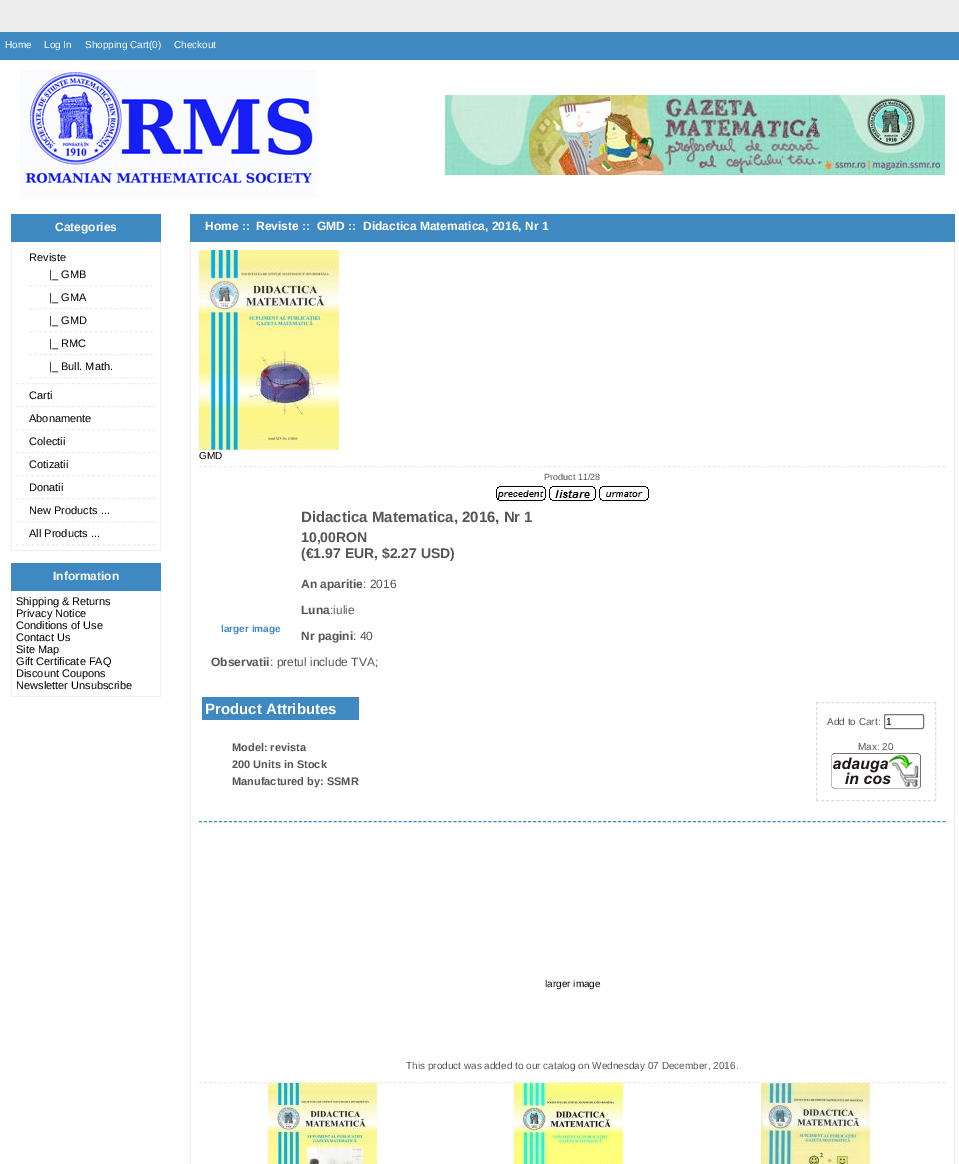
%!PS
<< /PageSize [959 1164] >> setpagedevice
/rgb { 3 { 255 div 3 1 roll } repeat setrgbcolor } def
/font { [ exch dup neg 0 0 3 -1 roll 0 0 ] selectfont } def
/roundrect { 5 dict begin { /r /h /w /y /x } { exch def } forall
  x r add y moveto x w add y 2 copy h add r arct x w add y h add x 1 index r arct
  x y h add x y r arct x y 2 copy exch w add exch r arct closepath end } def
/picture { 5 dict begin { /h /w /y /x /name } { exch def } forall
  gsave x y translate w h scale
  w h 8 [w 0 0 h 0 0] name (r) file false 3 colorimage grestore end } def
0 1164 translate 1 -1 scale
4 setmiterlimit
255 255 255 rgb
0 0 959 1164 rectfill
237 237 237 rgb
0 0 959 32 rectfill
63 137 195 rgb
0 32 959 28 rectfill
(img/1.rgb) 20 70 297 128 picture
(img/2.rgb) 445 95 500 80 picture
[
  [11 214 150 28 63 137 195]
  [160 242 1 309 238 238 238]
  [11 550 150 1 238 238 238]
  [11 242 1 309 238 238 238]
] { aload pop rgb rectfill } forall
[3 2.07] 0 setdash
16 383.5 moveto 156 383.5 lineto stroke
[3 2.04] 0 setdash
29 285.5 moveto 153 285.5 lineto stroke
29 308.5 moveto 153 308.5 lineto stroke
29 331.5 moveto 153 331.5 lineto stroke
29 354.5 moveto 153 354.5 lineto stroke
29 377.5 moveto 153 377.5 lineto stroke
[3 2.07] 0 setdash
16 406.5 moveto 156 406.5 lineto stroke
16 429.5 moveto 156 429.5 lineto stroke
16 452.5 moveto 156 452.5 lineto stroke
16 475.5 moveto 156 475.5 lineto stroke
16 498.5 moveto 156 498.5 lineto stroke
16 521.5 moveto 156 521.5 lineto stroke
16 544.5 moveto 156 544.5 lineto stroke
[
  [11 563 150 28 63 137 195]
  [160 591 1 106 238 238 238]
  [11 696 150 1 238 238 238]
  [11 591 1 106 238 238 238]
  [190 214 765 28 63 137 195]
  [954 242 1 922 238 238 238]
  [190 242 1 922 238 238 238]
] { aload pop rgb rectfill } forall
[3 1.99] 0 setdash
199 466.5 moveto 946 466.5 lineto stroke
(img/3.rgb) 199 250 140 200 picture
(img/4.rgb) 496 486 50 15 picture
(img/5.rgb) 549 486 47 15 picture
(img/6.rgb) 599 486 50 15 picture
63 137 195 rgb
202 697 157 23 rectfill
221 221 221 rgb
[3 2.09] 0 setdash
816 702.5 moveto 936 702.5 lineto stroke
[3 2.05] 0 setdash
935.5 702 moveto 935.5 801 lineto stroke
[3 2.09] 0 setdash
816 800.5 moveto 936 800.5 lineto stroke
[3 2.05] 0 setdash
816.5 702 moveto 816.5 801 lineto stroke
118 118 118 rgb
[] 0 setdash
884.5 714.5 39 14 1.5 roundrect stroke
(img/7.rgb) 831 753 90 36 picture
63 137 196 rgb
[3 1.99] 0 setdash
199 821.5 moveto 946 821.5 lineto stroke
238 238 238 rgb
199 1082.5 moveto 946 1082.5 lineto stroke
(img/8.rgb) 268 1083 109 81 picture
(img/9.rgb) 514 1083 109 81 picture
(img/10.rgb) 761 1083 109 81 picture
/LiberationSans-Regular 10 font
255 255 255 rgb
[
  [(Home) 5 48]
  [(Log In) 44 48]
  [(Shopping Cart\(0\)) 85 48]
  [(Checkout) 174 48]
] { aload pop moveto show } forall
/LiberationSans-Bold 12 font
55 231 moveto (Categories) show
/LiberationSans-Regular 11 font
0 0 0 rgb
[
  [(Reviste) 29 261]
  [(|_ GMB) 49 278]
  [(|_ GMA) 49 301]
  [(|_ GMD) 49 324]
  [(|_ RMC) 49 347]
  [(|_ Bull. Math.) 49 370]
  [(Carti) 29 399]
  [(Abonamente) 29 422]
  [(Colectii) 29 445]
  [(Cotizatii) 29 468]
  [(Donatii) 29 491]
  [(New Products ...) 29 514]
  [(All Products ...) 29 537]
] { aload pop moveto show } forall
/LiberationSans-Bold 12 font
255 255 255 rgb
53 580 moveto (Information) show
/LiberationSans-Regular 11 font
0 0 0 rgb
[
  [(Shipping & Returns) 16 605]
  [(Privacy Notice) 16 617]
  [(Conditions of Use) 16 629]
  [(Contact Us) 16 641]
  [(Site Map) 16 653]
  [(Gift Certificate FAQ) 16 665]
  [(Discount Coupons) 16 677]
  [(Newsletter Unsubscribe) 16 689]
] { aload pop moveto show } forall
/LiberationSans-Bold 12 font
255 255 255 rgb
[
  [(Home ::) 205 230]
  [(Reviste ::) 256 230]
  [(GMD ::  Didactica Matematica, 2016, Nr 1) 317 230]
] { aload pop moveto show } forall
/LiberationSans-Regular 10 font
0 0 0 rgb
199 459 moveto (GMD) show
/LiberationSans-Regular 9 font
85 85 85 rgb
544 480 moveto (Product 11/28) show
/LiberationSans-Bold 15 font
301 522 moveto (Didactica Matematica, 2016, Nr 1) show
/LiberationSans-Bold 14 font
301 542 moveto (10,00RON) show
301 558 moveto (\(€1.97 EUR, $2.27 USD\)) show
/LiberationSans-Bold 12 font
301 588 moveto (An aparitie) show
/LiberationSans-Regular 12 font
363 588 moveto (: 2016) show
/LiberationSans-Bold 12 font
301 614 moveto (Luna) show
/LiberationSans-Regular 12 font
330 614 moveto (:iulie) show
/LiberationSans-Bold 12 font
301 640 moveto (Nr pagini) show
/LiberationSans-Regular 12 font
353 640 moveto (: 40) show
/LiberationSans-Bold 12 font
211 666 moveto (Observatii) show
/LiberationSans-Regular 12 font
270 666 moveto (: pretul include TVA;) show
/LiberationSans-Bold 10 font
63 137 195 rgb
221 632 moveto (larger image) show
/LiberationSans-Bold 15 font
255 255 255 rgb
205 714 moveto (Product Attributes) show
/LiberationSans-Bold 11 font
85 85 85 rgb
[
  [(Model: revista) 232 751]
  [(200 Units in Stock) 232 768]
  [(Manufactured by: SSMR) 232 785]
] { aload pop moveto show } forall
/LiberationSans-Regular 10 font
827 725 moveto (Add to Cart:) show
0 0 0 rgb
886 725 moveto (1) show
85 85 85 rgb
858 750 moveto (Max: 20) show
0 0 0 rgb
545 987 moveto (larger image) show
85 85 85 rgb
406 1069 moveto (This product was added to our catalog on Wednesday 07 December, 2016.) show
showpage
